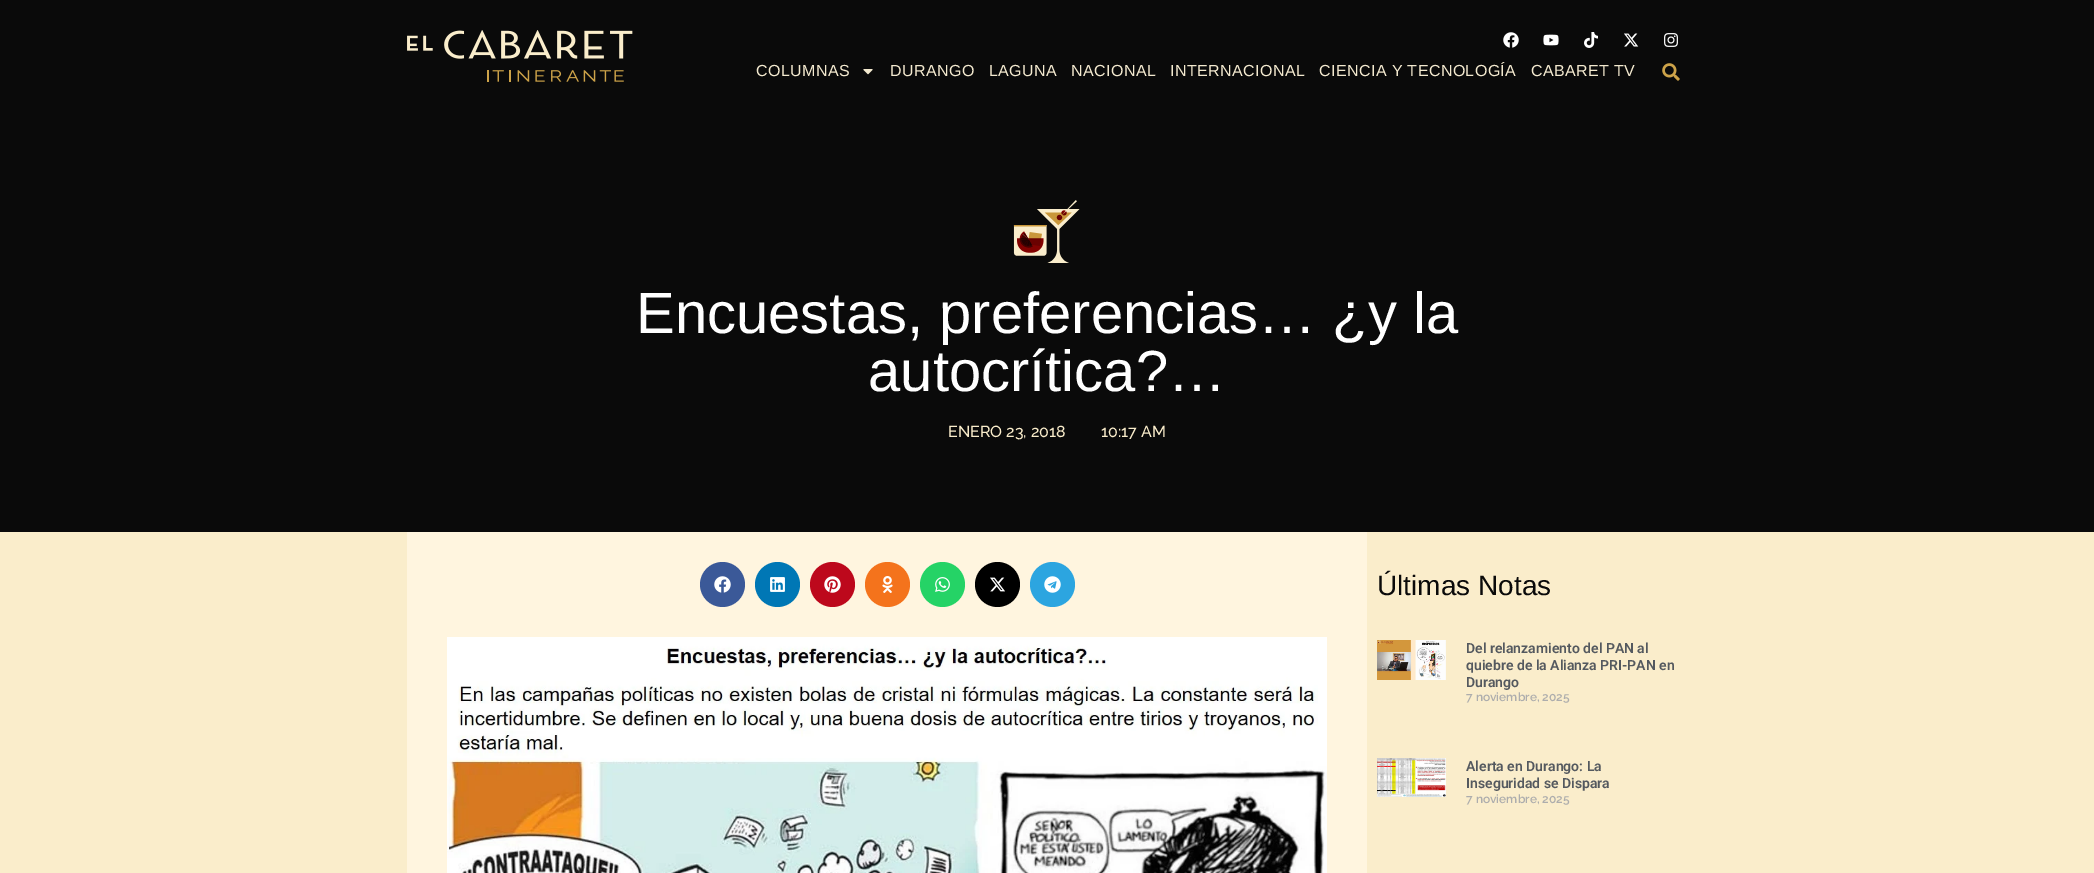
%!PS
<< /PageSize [2094 873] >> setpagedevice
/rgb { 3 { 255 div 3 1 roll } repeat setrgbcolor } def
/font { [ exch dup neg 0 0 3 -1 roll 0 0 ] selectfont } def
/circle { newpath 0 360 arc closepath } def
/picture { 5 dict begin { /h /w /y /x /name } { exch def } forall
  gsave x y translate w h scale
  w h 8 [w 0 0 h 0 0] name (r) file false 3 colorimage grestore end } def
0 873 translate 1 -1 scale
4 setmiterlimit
250 237 203 rgb
0 0 2094 873 rectfill
10 10 10 rgb
0 0 2094 532 rectfill
(img/1.rgb) 407 30 226 52 picture
(img/2.rgb) 1503 32 16 16 picture
(img/3.rgb) 1543 34 16 12 picture
(img/4.rgb) 1584 32 14 16 picture
(img/5.rgb) 1624 33 15 14 picture
(img/6.rgb) 1664 33 14 14 picture
(img/7.rgb) 863 69 10 6 picture
(img/8.rgb) 1662 63 18 18 picture
(img/9.rgb) 1013 200 67 63 picture
255 245 223 rgb
407 532 960 341 rectfill
59 89 152 rgb
722.5 584.5 22.5 circle fill
(img/10.rgb) 714 576 17 17 picture
0 119 181 rgb
777.5 584.5 22.5 circle fill
(img/11.rgb) 770 577 15 15 picture
189 8 28 rgb
832.5 584.5 22.5 circle fill
(img/12.rgb) 824 576 17 17 picture
244 115 28 rgb
887.5 584.5 22.5 circle fill
(img/13.rgb) 882 576 11 17 picture
37 211 102 rgb
942.5 584.5 22.5 circle fill
(img/14.rgb) 935 577 15 15 picture
0 0 0 rgb
997.5 584.5 22.5 circle fill
(img/15.rgb) 990 577 15 15 picture
44 165 224 rgb
1052.5 584.5 22.5 circle fill
(img/16.rgb) 1044 576 17 17 picture
(img/17.rgb) 447 637 880 236 picture
(img/18.rgb) 1377 640 69 40 picture
(img/19.rgb) 1377 758 69 39 picture
/LiberationSans-Regular 16 font
243 233 207 rgb
756 76 moveto 0.4 0 (COLUMNAS) ashow
890 76 moveto 0.4 0 (DURANGO) ashow
989 76 moveto 0.4 0 (LAGUNA) ashow
1071 76 moveto 0.4 0 (NACIONAL) ashow
1170 76 moveto 0.4 0 (INTERNACIONAL) ashow
1319 76 moveto 0.4 0 (CIENCIA Y TECNOLOGÍA) ashow
1531 76 moveto 0.4 0 (CABARET TV) ashow
/LiberationSans-Regular 58 font
255 255 255 rgb
636 333 moveto (Encuestas, preferencias… ¿y la) show
868 391 moveto (autocrítica?…) show
/Raleway-Medium 16 font
250 237 203 rgb
948 437 moveto (ENERO 23, 2018) show
1101 437 moveto (10:17 AM) show
/LiberationSans-Regular 28 font
10 10 10 rgb
1377 595 moveto (Últimas Notas) show
/Roboto-SemiBold 14 font
84 89 95 rgb
[
  [(Del relanzamiento del PAN al) 1466 653]
  [(quiebre de la Alianza PRI-PAN en) 1466 670]
  [(Durango) 1466 687]
] { aload pop moveto show } forall
/Raleway-SemiBold 12 font
173 173 173 rgb
1466 701 moveto (7 noviembre, 2025) show
/Roboto-SemiBold 14 font
84 89 95 rgb
1466 771 moveto (Alerta en Durango: La) show
1466 788 moveto (Inseguridad se Dispara) show
/Raleway-SemiBold 12 font
173 173 173 rgb
1466 803 moveto (7 noviembre, 2025) show
showpage
